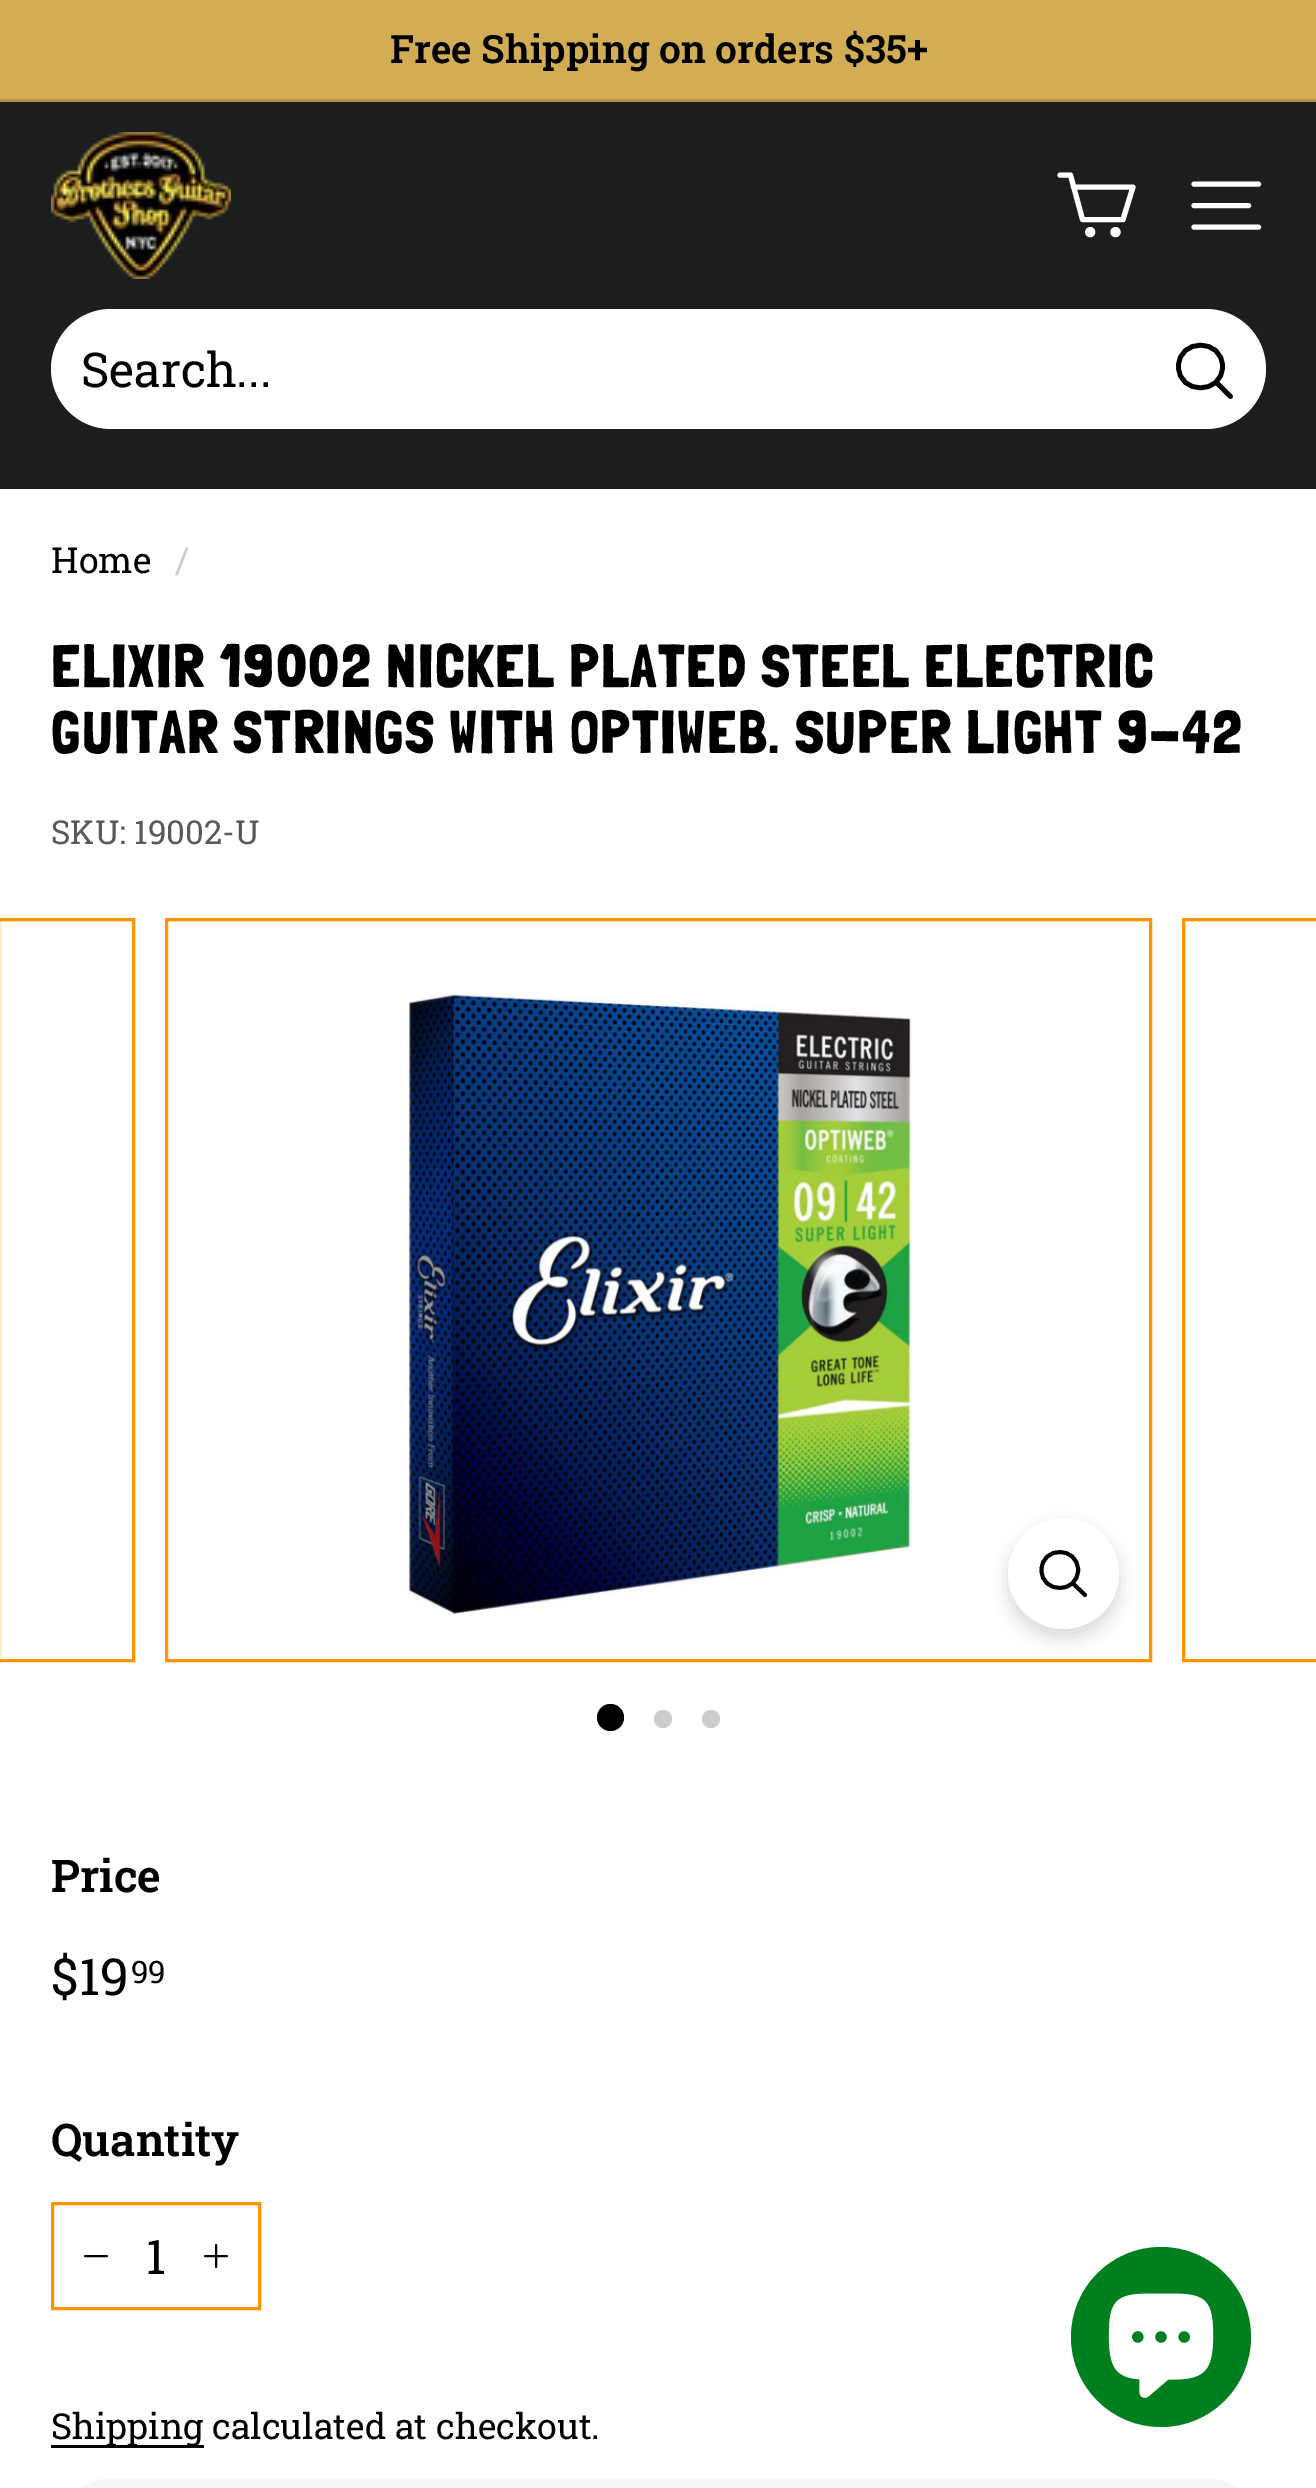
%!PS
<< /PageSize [1316 2488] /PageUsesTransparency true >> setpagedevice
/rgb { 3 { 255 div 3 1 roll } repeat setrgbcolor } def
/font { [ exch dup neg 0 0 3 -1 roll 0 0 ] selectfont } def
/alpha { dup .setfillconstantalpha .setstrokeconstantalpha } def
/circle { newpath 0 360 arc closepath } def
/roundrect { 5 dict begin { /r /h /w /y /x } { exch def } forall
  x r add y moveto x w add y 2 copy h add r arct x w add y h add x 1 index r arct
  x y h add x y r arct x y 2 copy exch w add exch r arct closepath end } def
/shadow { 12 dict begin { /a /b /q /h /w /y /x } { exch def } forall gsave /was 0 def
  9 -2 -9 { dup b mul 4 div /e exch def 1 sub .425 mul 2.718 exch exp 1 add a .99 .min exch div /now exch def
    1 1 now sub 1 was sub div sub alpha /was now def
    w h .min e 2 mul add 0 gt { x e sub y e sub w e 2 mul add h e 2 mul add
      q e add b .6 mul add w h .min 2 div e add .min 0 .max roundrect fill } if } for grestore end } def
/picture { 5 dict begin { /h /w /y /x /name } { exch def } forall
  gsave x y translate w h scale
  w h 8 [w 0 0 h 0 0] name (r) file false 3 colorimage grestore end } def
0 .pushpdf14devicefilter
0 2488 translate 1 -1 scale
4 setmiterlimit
255 255 255 rgb
0 0 1316 2488 rectfill
[
  [0 0 1316 99 211 173 83]
  [0 99 1316 3 179 147 71]
  [0 102 1316 387 28 29 29]
] { aload pop rgb rectfill } forall
(img/1.rgb) 51 132 180 147 picture
255 255 255 rgb
5.1 setlinewidth
1 setlinecap
1 setlinejoin
1073.5 187 moveto 1133 187 lineto 1123 219.5 lineto 1082.5 219.5 lineto 1070.5 175 lineto 1060 175 lineto stroke
0 setlinecap
0 setlinejoin
1090.2 232.1 2.5 circle stroke
1115.5 232.1 2.5 circle stroke
1 setlinecap
1 setlinejoin
1194 184 moveto 1258.5 184 lineto stroke
1194 205.5 moveto 1248.5 205.5 lineto stroke
1194 227 moveto 1258.5 227 lineto stroke
51 309 1215 120 60 roundrect fill
0 0 0 rgb
4.7 setlinewidth
1222.5 366.5 moveto 1222.5 395 1178.5 395 1178.5 366.5 curveto 1178.5 338 1222.5 338 1222.5 366.5 curveto closepath 1230.5 396.5 moveto 1216 382 lineto stroke
255 148 0 rgb
3 setlinewidth
0 setlinecap
0 setlinejoin
-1.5 919.5 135 741 rectstroke
166.5 919.5 984 741 rectstroke
(img/2.rgb) 407 993 506 622 picture
0 0 0 rgb
1008 1527 111 111 55.5 9 0.15 shadow
255 255 255 rgb
1063.5 1573.5 55.5 circle fill
0 0 0 rgb
3.9 setlinewidth
1 setlinecap
1 setlinejoin
1078 1570 moveto 1078 1594 1041.5 1594 1041.5 1570 curveto 1041.5 1546 1078 1546 1078 1570 curveto closepath 1085 1595 moveto 1073 1583.5 lineto stroke
255 148 0 rgb
3 setlinewidth
0 setlinecap
0 setlinejoin
1183.5 919.5 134 741 rectstroke
0 0 0 rgb
610.5 1717.5 13.5 circle fill
204 204 204 rgb
663 1719 9 circle fill
711 1719 9 circle fill
255 148 0 rgb
52.5 2203.5 207 105 rectstroke
0 0 0 rgb
1.9 setlinewidth
1 setlinecap
1 setlinejoin
107 2256 moveto 85 2256 lineto stroke
216 2245 moveto 216 2267 lineto 227 2256 moveto 205 2256 lineto stroke
51 2445 153 3 rectfill
246 246 246 rgb
51 2478 1215 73 63 roundrect fill
0 127 31 rgb
1161 2337 90 circle fill
(img/3.rgb) 1108 2293 106 105 picture
/RobotoSlab-SemiBold 39 font
0 0 0 rgb
390 63 moveto (Free Shipping on orders $35+) show
/RobotoSlab-Regular 48 font
81 387 moveto (Search...) show
/RobotoSlab-Regular 35.75 font
51 573 moveto (Home) show
204 204 204 rgb
175 573 moveto (/) show
/LondrinaSolid-Regular 60.5 font
0 0 0 rgb
51 687 moveto 1.5 0 (ELIXIR 19002 NICKEL PLATED STEEL ELECTRIC) ashow
51 753 moveto 1.5 0 (GUITAR STRINGS WITH OPTIWEB. SUPER LIGHT 9-42) ashow
/RobotoSlab-Regular 33 font
89 89 89 rgb
51 844 moveto (SKU: 19002-U) show
/RobotoSlab-SemiBold 45 font
0 0 0 rgb
51 1892 moveto (Price) show
/RobotoSlab-Regular 51 font
51 1995 moveto ($19) show
/RobotoSlab-Regular 31 font
131 1983 moveto (99) show
/RobotoSlab-SemiBold 45 font
51 2156 moveto (Quantity) show
/RobotoSlab-Regular 48 font
146 2274 moveto (1) show
/RobotoSlab-Regular 35.75 font
51 2439 moveto (Shipping calculated at checkout.) show
.poppdf14devicefilter showpage
